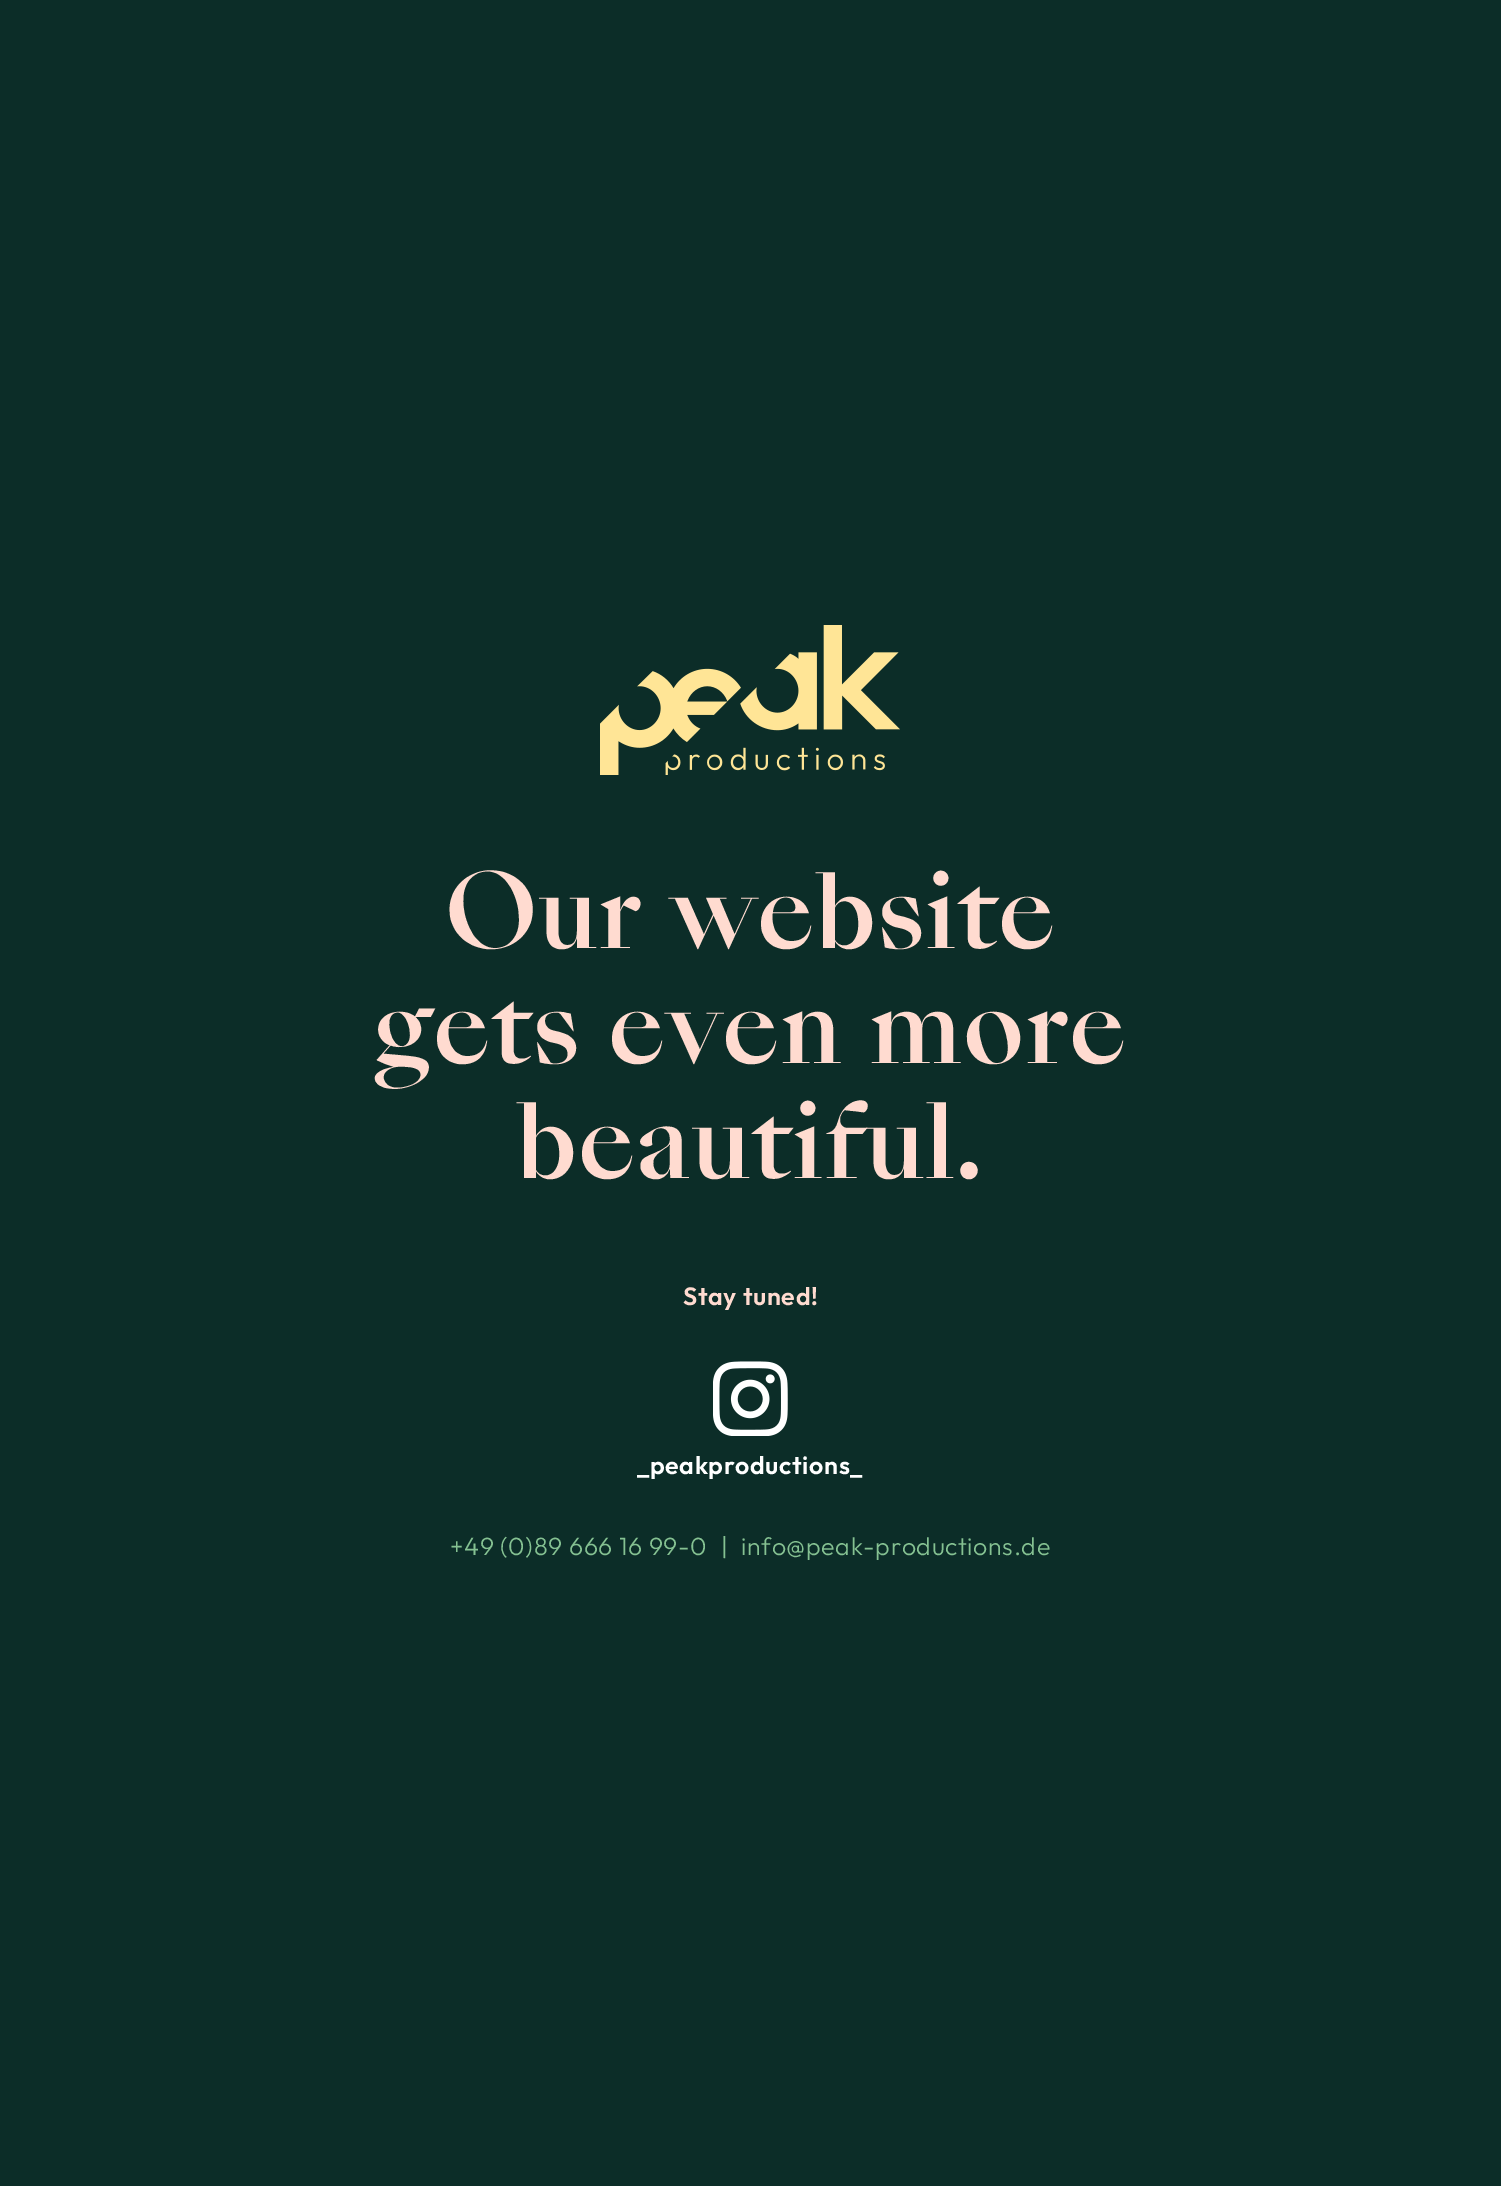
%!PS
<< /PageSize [1501 2186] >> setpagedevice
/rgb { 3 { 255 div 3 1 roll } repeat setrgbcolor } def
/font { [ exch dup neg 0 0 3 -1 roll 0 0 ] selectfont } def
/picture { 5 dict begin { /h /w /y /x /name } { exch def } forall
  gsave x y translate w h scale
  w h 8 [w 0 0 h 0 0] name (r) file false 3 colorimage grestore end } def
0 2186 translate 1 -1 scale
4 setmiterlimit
12 45 40 rgb
0 0 1501 2186 rectfill
(img/1.rgb) 600 625 300 150 picture
(img/2.rgb) 713 1361 75 75 picture
/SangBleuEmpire-Medium 100 font
255 219 208 rgb
445 948 moveto 0.6 0 (Our website) ashow
373 1063 moveto 0.6 0 (gets even more) ashow
516 1178 moveto 0.6 0 (beautiful.) ashow
/Outfit-Thin 25 font
683 1305 moveto 0.6 0 (Stay tuned!) ashow
255 255 255 rgb
637 1474 moveto 0.6 0 (_peakproductions_) ashow
/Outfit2-Thin 25 font
133 193 146 rgb
450 1555 moveto 0.6 0 (+49 \(0\)89 666 16 99-0) ashow
721 1555 moveto 0.6 0 (|) ashow
741 1555 moveto 0.6 0 (info@peak-productions.de) ashow
showpage
